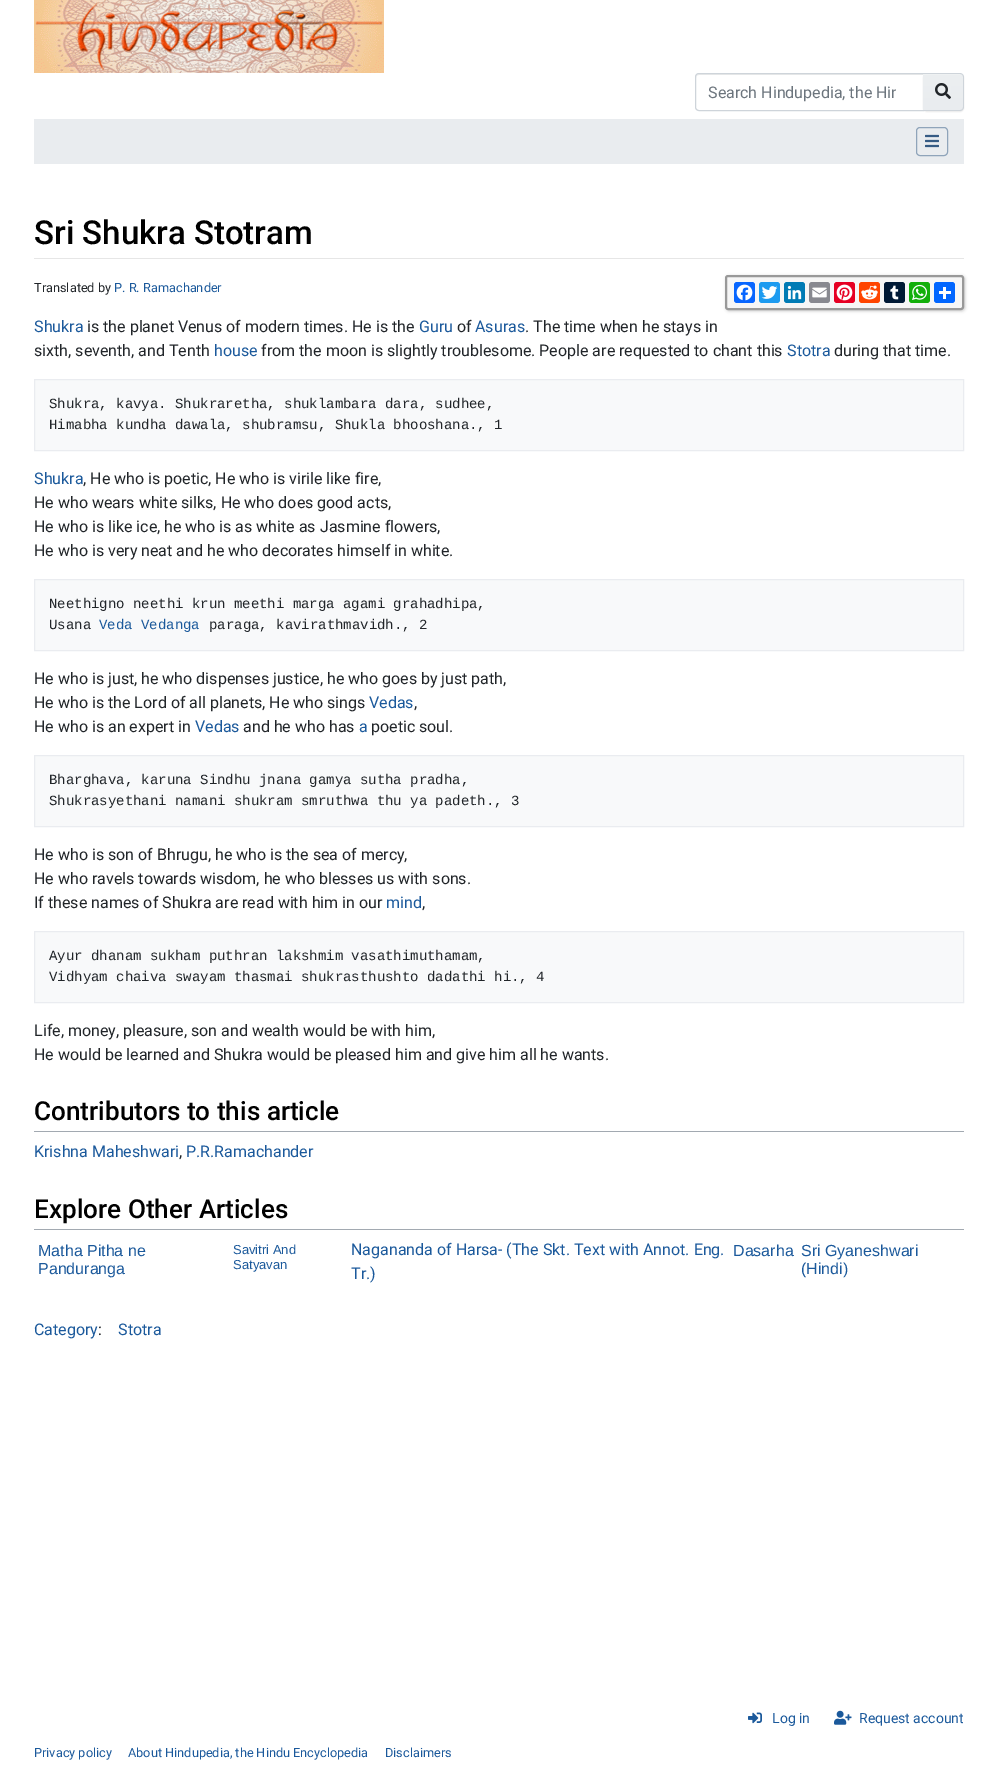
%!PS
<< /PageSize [998 1774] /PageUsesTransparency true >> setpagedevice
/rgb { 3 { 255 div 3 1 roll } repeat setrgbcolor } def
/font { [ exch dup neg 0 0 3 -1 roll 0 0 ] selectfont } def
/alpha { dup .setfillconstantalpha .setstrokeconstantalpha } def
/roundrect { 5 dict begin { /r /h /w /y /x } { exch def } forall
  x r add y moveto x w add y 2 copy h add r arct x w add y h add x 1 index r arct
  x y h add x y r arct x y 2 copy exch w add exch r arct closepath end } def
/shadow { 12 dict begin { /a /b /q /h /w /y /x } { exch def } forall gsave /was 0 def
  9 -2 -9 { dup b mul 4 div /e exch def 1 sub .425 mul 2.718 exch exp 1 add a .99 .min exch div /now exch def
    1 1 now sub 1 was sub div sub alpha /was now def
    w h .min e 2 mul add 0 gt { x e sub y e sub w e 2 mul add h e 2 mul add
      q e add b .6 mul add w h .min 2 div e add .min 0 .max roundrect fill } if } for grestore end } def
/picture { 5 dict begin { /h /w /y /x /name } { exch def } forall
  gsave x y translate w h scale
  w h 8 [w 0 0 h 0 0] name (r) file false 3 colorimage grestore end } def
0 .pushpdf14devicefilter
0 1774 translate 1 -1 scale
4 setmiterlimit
255 255 255 rgb
0 0 998 1774 rectfill
(img/1.rgb) 34 0 350 73 picture
236 236 236 rgb
699 75 moveto 923 75 lineto 923 74 lineto 699 74 lineto 697 74 696 76 696 78 curveto 696 76 697 75 699 75 curveto closepath fill
206 212 218 rgb
699 73.5 moveto 923.5 73.5 lineto 923.5 110.5 lineto 699 110.5 lineto 697 110.5 695.5 109 695.5 107 curveto 695.5 77 lineto 695.5 75 697 73.5 699 73.5 curveto closepath stroke
0 0 0 rgb
923 74 41 38 4 0.5 0.07 shadow
gsave 923 74 moveto 960 74 lineto 961.5 74 963 75.5 963 77 curveto 963 107 lineto 963 108.5 961.5 110 960 110 curveto 923 110 lineto closepath clip newpath
<< /ShadingType 2 /ColorSpace /DeviceRGB /Coords [943 74 943 110] /Extend [true true] /Function << /FunctionType 2 /Domain [0 1] /C0 [0.925 0.937 0.945] /C1 [0.914 0.925 0.937] /N 1 >> >> shfill grestore
0.15 alpha
255 255 255 rgb
923 75 moveto 960 75 lineto 962 75 963 76 963 78 curveto 963 77 lineto 963 75 962 74 960 74 curveto 923 74 lineto closepath fill
1 alpha
206 212 218 rgb
923 73 moveto 960 73 lineto 962 73 964 75 964 77 curveto 964 107 lineto 964 109 962 111 960 111 curveto 923 111 lineto closepath 923 74 moveto 960 74 lineto 962 74 963 75 963 77 curveto 963 107 lineto 963 109 962 110 960 110 curveto 923 110 lineto closepath eofill
(img/2.rgb) 935 83 16 16 picture
233 236 239 rgb
34 119 930 45 rectfill
143 164 186 rgb
916.5 127.5 31 28 3.5 roundrect stroke
(img/3.rgb) 925 134 14 14 picture
230 230 230 rgb
34 258 930 1 rectfill
0 0 0 rgb
726 276 239 35 3 1.5 0.2 shadow
246 246 246 rgb
726 276 237 33 2 roundrect gsave fill grestore
153 153 153 rgb
2 setlinewidth
stroke
8 102 255 rgb
734 282 21 21 3 roundrect fill
(img/4.rgb) 736 284 17 17 picture
29 155 240 rgb
759 282 21 21 3 roundrect fill
(img/5.rgb) 761 286 17 13 picture
0 123 181 rgb
784 282 21 21 3 roundrect fill
(img/6.rgb) 787 285 15 15 picture
136 137 144 rgb
809 282 21 21 3 roundrect fill
(img/7.rgb) 812 287 15 11 picture
230 0 35 rgb
834 282 21 21 3 roundrect fill
(img/8.rgb) 836 284 17 17 picture
255 69 0 rgb
859 282 21 21 3 roundrect fill
(img/9.rgb) 861 285 17 15 picture
0 25 53 rgb
884 282 21 21 3 roundrect fill
(img/10.rgb) 890 285 9 15 picture
18 175 10 rgb
909 282 21 21 3 roundrect fill
(img/11.rgb) 912 284 15 16 picture
1 102 255 rgb
934 282 21 21 3 roundrect fill
255 255 255 rgb
943 287 3 12 rectfill
939 291 12 3 rectfill
248 249 250 rgb
34.5 379.5 moveto 963.5 379.5 lineto 963.5 450.5 lineto 34.5 450.5 lineto closepath gsave fill grestore
234 236 240 rgb
1 setlinewidth
stroke
248 249 250 rgb
34.5 579.5 moveto 963.5 579.5 lineto 963.5 650.5 lineto 34.5 650.5 lineto closepath gsave fill grestore
234 236 240 rgb
stroke
248 249 250 rgb
34.5 755.5 moveto 963.5 755.5 lineto 963.5 826.5 lineto 34.5 826.5 lineto closepath gsave fill grestore
234 236 240 rgb
stroke
248 249 250 rgb
34.5 931.5 moveto 963.5 931.5 lineto 963.5 1002.5 lineto 34.5 1002.5 lineto closepath gsave fill grestore
234 236 240 rgb
stroke
162 169 177 rgb
34 1131 930 1 rectfill
34 1229 930 1 rectfill
(img/12.rgb) 748 1712 14 12 picture
(img/13.rgb) 834 1710 18 15 picture
gsave
708 83 188 19 rectclip
/Roboto-Regular 16 font
108 117 125 rgb
708 98 moveto (Search Hindupedia, the Hin) show
grestore
/Roboto-Medium 33 font
0 0 0 rgb
34 244 moveto (Sri Shukra Stotram) show
/Roboto-Regular 12.75 font
33 37 41 rgb
34 292 moveto (Translated by) show
27 89 155 rgb
114 292 moveto (P. R. Ramachander) show
/Roboto-Regular 16 font
34 332 moveto (Shukra) show
33 37 41 rgb
87 332 moveto (is the planet Venus of modern times. He is the) show
27 89 155 rgb
419 332 moveto (Guru) show
33 37 41 rgb
457 332 moveto (of) show
27 89 155 rgb
475 332 moveto (Asuras) show
33 37 41 rgb
525 332 moveto (. The time when he stays in) show
34 356 moveto (sixth, seventh, and Tenth) show
27 89 155 rgb
214 356 moveto (house) show
33 37 41 rgb
261 356 moveto (from the moon is slightly troublesome. People are requested to chant this) show
27 89 155 rgb
787 356 moveto (Stotra) show
33 37 41 rgb
834 356 moveto (during that time.) show
/LiberationMono-Regular 14 font
49 408 moveto (Shukra, kavya. Shukraretha, shuklambara dara, sudhee,) show
49 429 moveto (Himabha kundha dawala, shubramsu, Shukla bhooshana., 1) show
/Roboto-Regular 16 font
27 89 155 rgb
34 484 moveto (Shukra) show
33 37 41 rgb
[
  [(, He who is poetic, He who is virile like fire,) 83 484]
  [(He who wears white silks, He who does good acts,) 34 508]
  [(He who is like ice, he who is as white as Jasmine flowers,) 34 532]
  [(He who is very neat and he who decorates himself in white.) 34 556]
] { aload pop moveto show } forall
/LiberationMono-Regular 14 font
49 608 moveto (Neethigno neethi krun meethi marga agami grahadhipa,) show
49 629 moveto (Usana) show
27 89 155 rgb
99 629 moveto (Veda Vedanga) show
33 37 41 rgb
209 629 moveto (paraga, kavirathmavidh., 2) show
/Roboto-Regular 16 font
34 684 moveto (He who is just, he who dispenses justice, he who goes by just path,) show
34 708 moveto (He who is the Lord of all planets, He who sings) show
27 89 155 rgb
369 708 moveto (Vedas) show
33 37 41 rgb
414 708 moveto (,) show
34 732 moveto (He who is an expert in) show
27 89 155 rgb
195 732 moveto (Vedas) show
33 37 41 rgb
243 732 moveto (and he who has) show
27 89 155 rgb
359 732 moveto (a) show
33 37 41 rgb
371 732 moveto (poetic soul.) show
/LiberationMono-Regular 14 font
49 784 moveto (Bharghava, karuna Sindhu jnana gamya sutha pradha,) show
49 805 moveto (Shukrasyethani namani shukram smruthwa thu ya padeth., 3) show
/Roboto-Regular 16 font
[
  [(He who is son of Bhrugu, he who is the sea of mercy,) 34 860]
  [(He who ravels towards wisdom, he who blesses us with sons.) 34 884]
  [(If these names of Shukra are read with him in our) 34 908]
] { aload pop moveto show } forall
27 89 155 rgb
386 908 moveto (mind) show
33 37 41 rgb
422 908 moveto (,) show
/LiberationMono-Regular 14 font
49 960 moveto (Ayur dhanam sukham puthran lakshmim vasathimuthamam,) show
49 981 moveto (Vidhyam chaiva swayam thasmai shukrasthushto dadathi hi., 4) show
/Roboto-Regular 16 font
34 1036 moveto (Life, money, pleasure, son and wealth would be with him,) show
34 1060 moveto (He would be learned and Shukra would be pleased him and give him all he wants.) show
/Roboto-Medium 26.1 font
0 0 0 rgb
34 1120 moveto (Contributors to this article) show
/Roboto-Regular 16 font
27 89 155 rgb
34 1157 moveto (Krishna Maheshwari) show
33 37 41 rgb
179 1157 moveto (,) show
27 89 155 rgb
186 1157 moveto (P.R.Ramachander) show
/Roboto-Medium 26.1 font
0 0 0 rgb
34 1218 moveto (Explore Other Articles) show
/LiberationSans-Regular 16 font
27 89 155 rgb
38 1256 moveto (Matha Pitha ne) show
38 1274 moveto (Panduranga) show
/LiberationSans-Regular 13 font
233 1254 moveto (Savitri And) show
233 1269 moveto (Satyavan) show
/Roboto-Regular 16 font
351 1255 moveto (Nagananda of Harsa- \(The Skt. Text with Annot. Eng.) show
351 1279 moveto (Tr.\)) show
/LiberationSans-Regular 16 font
[
  [(Dasarha) 733 1256]
  [(Sri Gyaneshwari) 801 1256]
  [(\(Hindi\)) 801 1274]
] { aload pop moveto show } forall
/Roboto-Regular 16 font
34 1335 moveto (Category) show
33 37 41 rgb
98 1335 moveto (:) show
27 89 155 rgb
118 1335 moveto (Stotra) show
/Roboto-Regular 14 font
772 1723 moveto (Log in) show
859 1723 moveto (Request account) show
/Roboto-Regular 12.75 font
[
  [(Privacy policy) 34 1757]
  [(About Hindupedia, the Hindu Encyclopedia) 128 1757]
  [(Disclaimers) 385 1757]
] { aload pop moveto show } forall
.poppdf14devicefilter showpage
